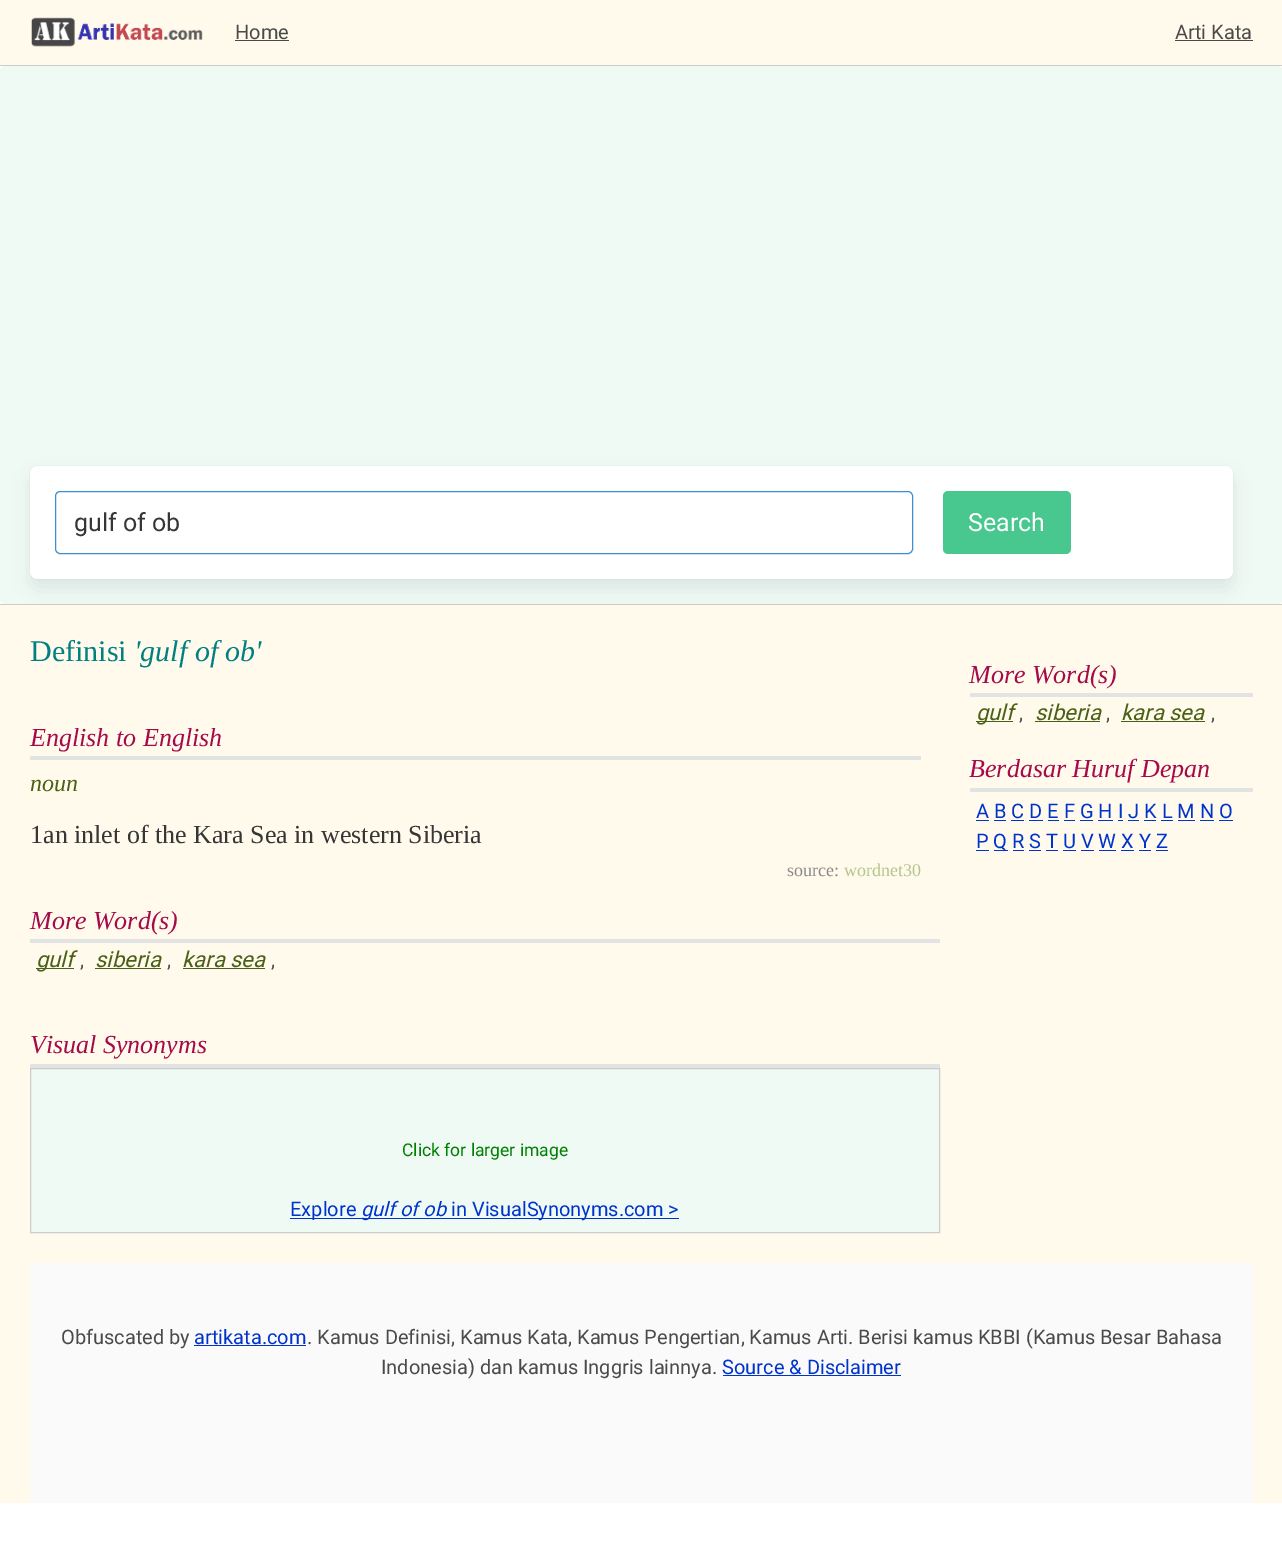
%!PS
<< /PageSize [1282 1547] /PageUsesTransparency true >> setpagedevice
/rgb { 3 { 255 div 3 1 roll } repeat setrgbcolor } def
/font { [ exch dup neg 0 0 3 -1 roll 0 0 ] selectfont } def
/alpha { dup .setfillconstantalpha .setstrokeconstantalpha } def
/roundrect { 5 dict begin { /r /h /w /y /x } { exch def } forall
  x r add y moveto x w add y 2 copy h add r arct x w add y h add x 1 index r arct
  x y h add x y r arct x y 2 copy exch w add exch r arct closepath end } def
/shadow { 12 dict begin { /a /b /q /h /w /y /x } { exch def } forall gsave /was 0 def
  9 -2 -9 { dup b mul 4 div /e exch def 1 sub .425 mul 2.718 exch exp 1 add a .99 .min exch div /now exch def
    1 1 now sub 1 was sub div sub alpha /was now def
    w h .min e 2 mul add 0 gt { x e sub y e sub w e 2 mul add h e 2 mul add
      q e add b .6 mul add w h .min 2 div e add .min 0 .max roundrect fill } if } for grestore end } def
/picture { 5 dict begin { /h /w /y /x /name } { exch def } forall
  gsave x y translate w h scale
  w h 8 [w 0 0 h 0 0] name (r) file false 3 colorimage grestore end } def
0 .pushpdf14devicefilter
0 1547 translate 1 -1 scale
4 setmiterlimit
255 255 255 rgb
0 0 1282 1547 rectfill
255 250 235 rgb
0 0 1282 65 rectfill
204 204 204 rgb
0 65 1282 1 rectfill
(img/1.rgb) 31 17 172 30 picture
74 74 74 rgb
235 40 54 1 rectfill
1175 40 78 1 rectfill
239 250 245 rgb
0 66 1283 538 5 roundrect fill
234 245 240 rgb
29.5 465.5 1204 114 8.5 roundrect stroke
10 10 10 rgb
33 479 1197 107 5 10 0.1 shadow
255 255 255 rgb
30 466 1203 113 8 roundrect fill
62 142 208 rgb
55.5 491.5 857 62 4.5 roundrect stroke
72 199 142 rgb
943 491 128 63 5 roundrect fill
[
  [0 605 1282 898 255 250 235]
  [0 604 1282 1 204 204 204]
  [30 756 891 4 226 227 227]
  [30 939 910 4 226 227 227]
  [36 968 38 1 73 94 25]
  [95 968 66 1 73 94 25]
  [183 968 82 1 73 94 25]
  [30 1064 910 4 226 227 227]
] { aload pop rgb rectfill } forall
239 250 245 rgb
30.5 1068.5 moveto 939.5 1068.5 lineto 939.5 1232.5 lineto 30.5 1232.5 lineto closepath gsave fill grestore
204 204 204 rgb
stroke
[
  [290 1218 156 1 0 51 204]
  [446 1218 233 1 0 51 204]
  [970 693 283 4 226 227 227]
  [976 721 37 1 73 94 25]
  [1035 721 65 1 73 94 25]
  [1121 721 84 1 73 94 25]
  [970 788 283 4 226 227 227]
  [976 820 13 1 0 51 204]
  [994 820 12 1 0 51 204]
  [1011 820 13 1 0 51 204]
  [1029 820 14 1 0 51 204]
  [1048 820 11 1 0 51 204]
  [1064 820 11 1 0 51 204]
  [1080 820 13 1 0 51 204]
  [1098 820 15 1 0 51 204]
  [1118 820 5 1 0 51 204]
  [1128 820 11 1 0 51 204]
  [1144 820 12 1 0 51 204]
  [1161 820 12 1 0 51 204]
  [1178 820 17 1 0 51 204]
  [1200 820 14 1 0 51 204]
  [1219 820 14 1 0 51 204]
  [976 850 13 1 0 51 204]
  [994 850 14 1 0 51 204]
  [1013 850 11 1 0 51 204]
  [1029 850 12 1 0 51 204]
  [1046 850 12 1 0 51 204]
  [1063 850 13 1 0 51 204]
  [1081 850 13 1 0 51 204]
  [1099 850 17 1 0 51 204]
  [1121 850 13 1 0 51 204]
  [1139 850 12 1 0 51 204]
  [1156 850 12 1 0 51 204]
  [30 1263 1223 240 250 250 250]
  [194 1345 112 1 0 51 204]
  [723 1375 178 1 0 51 204]
] { aload pop rgb rectfill } forall
/Roboto-Regular 20 font
74 74 74 rgb
235 39 moveto (Home) show
1175 39 moveto (Arti Kata) show
/Roboto-Regular 25 font
54 54 54 rgb
74 531 moveto (gulf of ob) show
255 255 255 rgb
968 531 moveto (Search) show
/LiberationSerif-Regular 30 font
0 128 128 rgb
30 661 moveto (Definisi) show
/LiberationSerif-Italic 30 font
134 661 moveto ('gulf of ob') show
/LiberationSerif-Italic 26 font
165 11 74 rgb
30 746 moveto (English to English) show
/LiberationSerif-Italic 24 font
73 96 21 rgb
30 791 moveto (noun) show
/LiberationSerif-Regular 26 font
54 54 54 rgb
30 843 moveto (1an inlet of the Kara Sea in western Siberia) show
/LiberationSerif-Regular 18 font
136 136 136 rgb
787 876 moveto (source:) show
179 196 140 rgb
844 876 moveto (wordnet30) show
/LiberationSerif-Italic 26 font
165 11 74 rgb
30 929 moveto (More Word\(s\)) show
/Roboto-Italic 22 font
73 96 21 rgb
36 967 moveto (gulf) show
/Roboto-Regular 20 font
74 74 74 rgb
80 967 moveto (,) show
/Roboto-Italic 22 font
73 96 21 rgb
95 967 moveto (siberia) show
/Roboto-Regular 20 font
74 74 74 rgb
167 967 moveto (,) show
/Roboto-Italic 22 font
73 96 21 rgb
182 967 moveto (kara sea) show
/Roboto-Regular 20 font
74 74 74 rgb
271 967 moveto (,) show
/LiberationSerif-Italic 26 font
165 11 74 rgb
30 1053 moveto (Visual Synonyms) show
/Roboto-Regular 17.5 font
0 128 0 rgb
402 1156 moveto (Click for larger image) show
/Roboto-Regular 20 font
0 51 204 rgb
290 1216 moveto (Explore) show
/Roboto-Italic 20 font
361 1216 moveto (gulf of ob) show
/Roboto-Regular 20 font
451 1216 moveto (in VisualSynonyms.com >) show
/LiberationSerif-Italic 26 font
165 11 74 rgb
969 683 moveto (More Word\(s\)) show
/Roboto-Italic 22 font
73 96 21 rgb
976 720 moveto (gulf) show
/Roboto-Regular 20 font
74 74 74 rgb
1019 720 moveto (,) show
/Roboto-Italic 22 font
73 96 21 rgb
1035 720 moveto (siberia) show
/Roboto-Regular 20 font
74 74 74 rgb
1106 720 moveto (,) show
/Roboto-Italic 22 font
73 96 21 rgb
1121 720 moveto (kara sea) show
/Roboto-Regular 20 font
74 74 74 rgb
1211 720 moveto (,) show
/LiberationSerif-Italic 26 font
165 11 74 rgb
969 777 moveto (Berdasar Huruf Depan) show
/Roboto-Regular 20 font
0 51 204 rgb
[
  [(A B C D E F G H I J K L M N O) 976 818]
  [(P) 976 848]
  [(Q R S T U V W X Y Z) 993 848]
] { aload pop moveto show } forall
74 74 74 rgb
61 1344 moveto (Obfuscated by) show
0 51 204 rgb
194 1344 moveto (artikata.com) show
74 74 74 rgb
307 1344 moveto (. Kamus Definisi, Kamus Kata, Kamus Pengertian, Kamus Arti. Berisi kamus KBBI \(Kamus Besar Bahasa) show
381 1374 moveto (Indonesia\) dan kamus Inggris lainnya.) show
0 51 204 rgb
722 1374 moveto (Source & Disclaimer) show
.poppdf14devicefilter showpage
